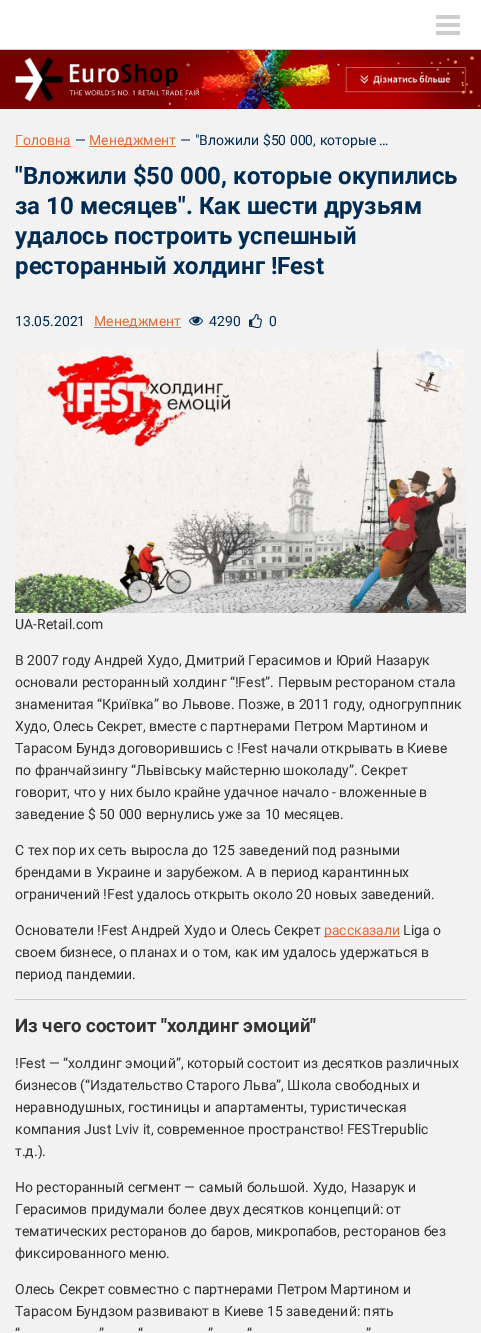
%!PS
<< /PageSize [481 1333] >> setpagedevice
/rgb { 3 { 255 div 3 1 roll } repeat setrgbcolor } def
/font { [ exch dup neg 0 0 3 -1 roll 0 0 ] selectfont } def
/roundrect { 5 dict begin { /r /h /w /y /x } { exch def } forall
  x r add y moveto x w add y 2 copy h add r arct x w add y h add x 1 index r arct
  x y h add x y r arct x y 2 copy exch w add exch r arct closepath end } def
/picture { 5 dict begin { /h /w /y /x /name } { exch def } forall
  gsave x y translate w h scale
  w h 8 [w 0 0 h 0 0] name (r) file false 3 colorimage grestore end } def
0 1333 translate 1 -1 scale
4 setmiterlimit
242 242 242 rgb
0 0 481 1333 rectfill
255 255 255 rgb
0 0 481 49 rectfill
205 205 205 rgb
0 49 481 1 rectfill
436 23 24 4 1 roundrect fill
436 15 24 4 1 roundrect fill
436 31 24 4 1 roundrect fill
(img/1.rgb) 0 50 481 59 picture
[
  [15 146 56 1 228 108 59]
  [89 146 87 1 228 108 59]
  [94 327 87 1 228 108 59]
] { aload pop rgb rectfill } forall
(img/2.rgb) 189 316 14 10 picture
(img/3.rgb) 249 314 13 14 picture
(img/4.rgb) 15 349 451 264 picture
324 936 76 1 rectfill
204 204 204 rgb
15 999 451 1 rectfill
/Roboto-Regular 14 font
228 108 59 rgb
15 145 moveto (Головна) show
0 44 84 rgb
75 145 moveto (—) show
228 108 59 rgb
89 145 moveto (Менеджмент) show
0 44 84 rgb
180 145 moveto (—) show
195 145 moveto ("Вложили $50 000, которые …) show
/Roboto-Bold 24 font
[
  [("Вложили $50 000, которые окупились) 15 184]
  [(за 10 месяцев". Как шести друзьям) 15 214]
  [(удалось построить успешный) 15 244]
  [(ресторанный холдинг !Fest) 15 274]
] { aload pop moveto show } forall
/Roboto-Regular 14 font
15 326 moveto (13.05.2021) show
228 108 59 rgb
94 326 moveto (Менеджмент) show
0 44 84 rgb
209 326 moveto (4290) show
269 326 moveto (0) show
51 51 51 rgb
[
  [(UA-Retail.com) 15 629]
  [(В 2007 году Андрей Худо, Дмитрий Герасимов и Юрий Назарук) 15 665]
  [(основали ресторанный холдинг “!Fest”. Первым рестораном стала) 15 687]
  [(знаменитая “Криївка” во Львове. Позже, в 2011 году, одногруппник) 15 709]
  [(Худо, Олесь Секрет, вместе с партнерами Петром Мартином и) 15 731]
  [(Тарасом Бундз договорившись с !Fest начали открывать в Киеве) 15 753]
  [(по франчайзингу “Львівську майстерню шоколаду”. Секрет) 15 775]
  [(говорит, что у них было крайне удачное начало - вложенные в) 15 797]
  [(заведение $ 50 000 вернулись уже за 10 месяцев.) 15 819]
  [(С тех пор их сеть выросла до 125 заведений под разными) 15 855]
  [(брендами в Украине и зарубежом. А в период карантинных) 15 877]
  [(ограничений !Fest удалось открыть около 20 новых заведений.) 15 899]
  [(Основатели !Fest Андрей Худо и Олесь Секрет) 15 935]
] { aload pop moveto show } forall
228 108 59 rgb
324 935 moveto (рассказали) show
51 51 51 rgb
[
  [(Liga о) 403 935]
  [(своем бизнесе, о планах и о том, как им удалось удержаться в) 15 957]
  [(период пандемии.) 15 979]
] { aload pop moveto show } forall
/Roboto-Bold 18.7 font
15 1032 moveto (Из чего состоит "холдинг эмоций") show
/Roboto-Regular 14 font
[
  [(!Fest — “холдинг эмоций”, который состоит из десятков различных) 15 1068]
  [(бизнесов \(“Издательство Старого Льва”, Школа свободных и) 15 1090]
  [(неравнодушных, гостиницы и апартаменты, туристическая) 15 1112]
  [(компания Just Lviv it, современное пространство! FESTrepublic) 15 1134]
  [(т.д.\).) 15 1156]
  [(Но ресторанный сегмент — самый большой. Худо, Назарук и) 15 1192]
  [(Герасимов придумали более двух десятков концепций: от) 15 1214]
  [(тематических ресторанов до баров, микропабов, ресторанов без) 15 1236]
  [(фиксированного меню.) 15 1258]
  [(Олесь Секрет совместно с партнерами Петром Мартином и) 15 1294]
  [(Тарасом Бундзом развивают в Киеве 15 заведений: пять) 15 1316]
  [(“) 15 1338]
  [(”) 99 1338]
  [(“) 138 1338]
  [(”) 208 1338]
  [(“) 247 1338]
  [(”) 366 1338]
] { aload pop moveto show } forall
showpage
